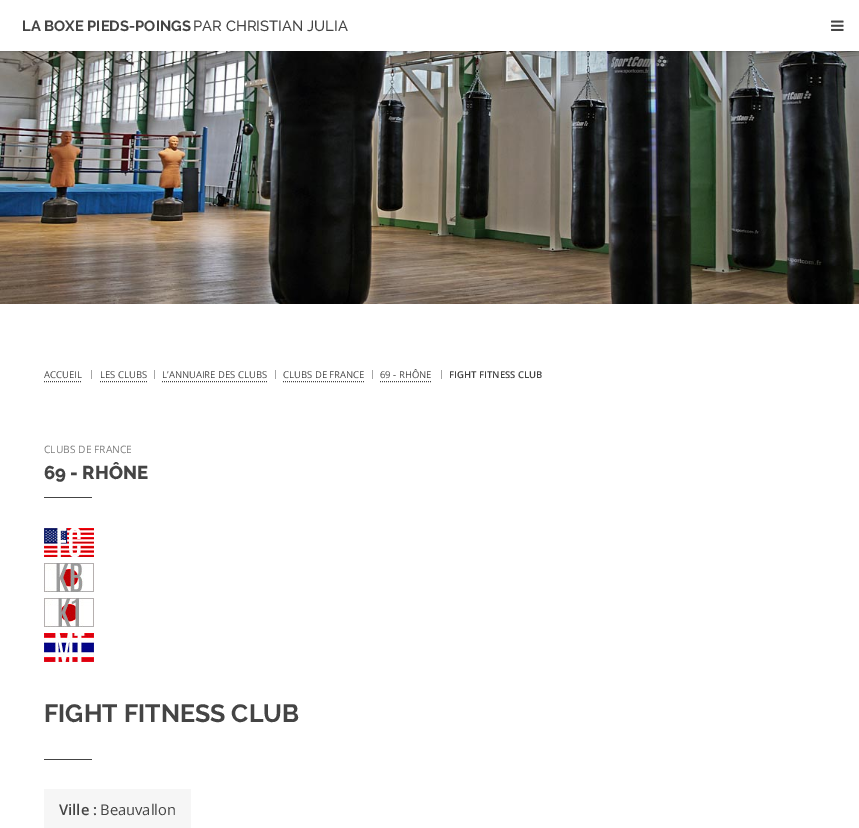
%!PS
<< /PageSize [859 828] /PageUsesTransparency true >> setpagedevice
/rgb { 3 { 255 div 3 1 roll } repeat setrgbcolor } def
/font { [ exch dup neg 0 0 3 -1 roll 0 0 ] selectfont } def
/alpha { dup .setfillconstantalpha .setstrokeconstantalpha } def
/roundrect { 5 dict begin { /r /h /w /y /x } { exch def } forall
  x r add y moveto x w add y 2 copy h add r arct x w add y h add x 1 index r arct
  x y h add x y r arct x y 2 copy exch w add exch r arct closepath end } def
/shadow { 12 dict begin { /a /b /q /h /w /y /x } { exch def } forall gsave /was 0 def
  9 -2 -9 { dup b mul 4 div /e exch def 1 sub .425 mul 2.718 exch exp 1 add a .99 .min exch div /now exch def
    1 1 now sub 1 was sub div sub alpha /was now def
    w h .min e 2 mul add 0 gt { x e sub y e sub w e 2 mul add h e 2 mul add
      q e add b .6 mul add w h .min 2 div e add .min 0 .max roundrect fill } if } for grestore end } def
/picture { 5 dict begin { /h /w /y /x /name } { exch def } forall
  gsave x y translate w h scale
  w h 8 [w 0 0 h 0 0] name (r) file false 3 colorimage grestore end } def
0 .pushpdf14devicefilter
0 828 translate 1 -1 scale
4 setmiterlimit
255 255 255 rgb
0 0 859 828 rectfill
(img/2.rgb) 0 51 859 253 picture
gsave
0 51 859 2 rectclip
0 0 0 rgb
0 0 859 51 0 1 0.35 shadow
grestore
(img/1.rgb) 831 20 13 11 picture
68 68 68 rgb
[1 1] 0 setdash
44 381.5 moveto 82 381.5 lineto stroke
165 165 165 rgb
91 370 1 9 rectfill
68 68 68 rgb
100 381.5 moveto 147 381.5 lineto stroke
165 165 165 rgb
154 370 1 9 rectfill
68 68 68 rgb
162 381.5 moveto 267 381.5 lineto stroke
165 165 165 rgb
275 370 1 9 rectfill
68 68 68 rgb
283 381.5 moveto 364 381.5 lineto stroke
165 165 165 rgb
372 370 1 9 rectfill
68 68 68 rgb
380 381.5 moveto 431 381.5 lineto stroke
165 165 165 rgb
441 370 1 9 rectfill
68 68 68 rgb
44 497 48 1 rectfill
(img/3.rgb) 44 528 50 29 picture
(img/4.rgb) 44 563 50 29 picture
(img/5.rgb) 44 598 50 29 picture
(img/6.rgb) 44 633 50 29 picture
44 759 48 1 rectfill
246 246 246 rgb
44 789 147 39 rectfill
/Raleway-Bold 14.75 font
68 68 68 rgb
22 31 moveto (LA BOXE PIEDS-POINGS) show
/Raleway-Medium 14.75 font
193 31 moveto (PAR CHRISTIAN JULIA) show
/OpenSans-Regular 9.5 font
[
  [(ACCUEIL) 44 378]
  [(LES CLUBS) 100 378]
  [(L’ANNUAIRE DES CLUBS) 162 378]
  [(CLUBS DE FRANCE) 283 378]
  [(69 - RHÔNE) 380 378]
] { aload pop moveto show } forall
/OpenSans-SemiBold 9.5 font
449 378 moveto (FIGHT FITNESS CLUB) show
/OpenSans-Regular 10.25 font
124 124 124 rgb
44 453 moveto (CLUBS DE FRANCE) show
/Raleway-ExtraBold 18.5 font
68 68 68 rgb
44 479 moveto (69 - RHÔNE) show
/Raleway-Bold 25 font
44 722 moveto (FIGHT FITNESS CLUB) show
/OpenSans-SemiBold 14.75 font
59 815 moveto (Ville :) show
/OpenSans-Regular 14.75 font
100 815 moveto (Beauvallon) show
.poppdf14devicefilter showpage
